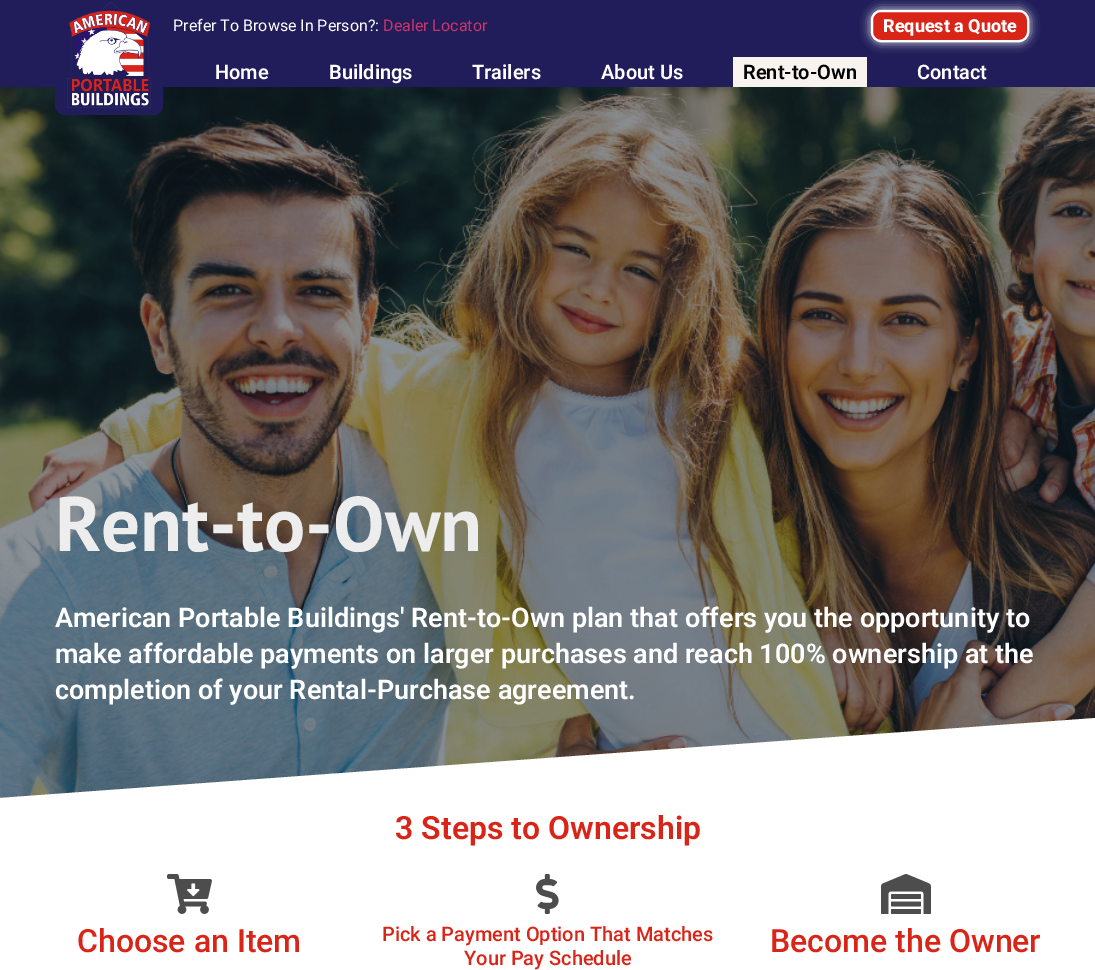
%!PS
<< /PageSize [1095 970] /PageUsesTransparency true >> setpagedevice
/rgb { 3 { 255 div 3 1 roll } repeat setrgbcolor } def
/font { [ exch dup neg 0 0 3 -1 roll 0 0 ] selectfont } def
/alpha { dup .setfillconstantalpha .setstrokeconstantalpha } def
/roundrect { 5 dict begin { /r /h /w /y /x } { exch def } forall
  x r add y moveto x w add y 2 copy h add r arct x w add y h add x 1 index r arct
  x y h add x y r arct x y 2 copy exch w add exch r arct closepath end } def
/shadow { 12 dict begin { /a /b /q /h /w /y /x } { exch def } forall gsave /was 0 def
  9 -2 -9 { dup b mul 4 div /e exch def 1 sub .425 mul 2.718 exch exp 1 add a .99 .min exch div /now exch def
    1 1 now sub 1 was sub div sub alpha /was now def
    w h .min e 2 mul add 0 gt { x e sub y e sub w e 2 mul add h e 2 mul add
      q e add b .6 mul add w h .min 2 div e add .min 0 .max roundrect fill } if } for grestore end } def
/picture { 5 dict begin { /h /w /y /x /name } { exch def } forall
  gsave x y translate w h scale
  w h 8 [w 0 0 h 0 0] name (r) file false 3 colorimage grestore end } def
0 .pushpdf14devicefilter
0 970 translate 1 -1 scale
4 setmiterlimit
255 255 255 rgb
0 0 1095 970 rectfill
33 29 90 rgb
0 0 1095 87 rectfill
(img/2.rgb) 0 87 1095 711 picture
55 1 108 114 10 roundrect fill
(img/1.rgb) 67 2 84 106 picture
255 255 255 rgb
871 10 158 32 10 5 1 shadow
217 36 24 rgb
872 11 156 30 9 roundrect gsave fill grestore
255 255 255 rgb
2 setlinewidth
stroke
248 243 239 rgb
733 57 134 30 rectfill
255 255 255 rgb
0 798 moveto 0 803 lineto 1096 803 lineto 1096 718 lineto closepath fill
(img/3.rgb) 167 874 45 40 picture
(img/4.rgb) 536 874 23 40 picture
(img/5.rgb) 881 874 50 40 picture
/Roboto-Regular 16 font
173 31 moveto (Prefer To Browse In Person?:) show
204 51 102 rgb
383 31 moveto (Dealer Locator) show
/Roboto-ExtraBold 18 font
255 255 255 rgb
883 32 moveto (Request a Quote) show
/Roboto-SemiBold 20 font
[
  [(Home) 215 79]
  [(Buildings) 329 79]
  [(Trailers) 472 79]
  [(About Us) 601 79]
] { aload pop moveto show } forall
0 0 0 rgb
743 79 moveto (Rent-to-Own) show
255 255 255 rgb
917 79 moveto (Contact) show
/PTSans-Bold 77 font
237 237 237 rgb
55 551 moveto (Rent-to-Own) show
/Roboto-SemiBold 27 font
255 255 255 rgb
[
  [(American Portable Buildings' Rent-to-Own plan that offers you the opportunity to) 55 627]
  [(make affordable payments on larger purchases and reach 100% ownership at the) 55 663]
  [(completion of your Rental-Purchase agreement.) 55 699]
] { aload pop moveto show } forall
/Roboto-SemiBold 32 font
217 36 24 rgb
395 839 moveto (3 Steps to Ownership) show
/Roboto-Medium 32 font
77 952 moveto (Choose an Item) show
/Roboto-Medium 20 font
382 941 moveto (Pick a Payment Option That Matches) show
464 965 moveto (Your Pay Schedule) show
/Roboto-Medium 32 font
770 952 moveto (Become the Owner) show
.poppdf14devicefilter showpage
